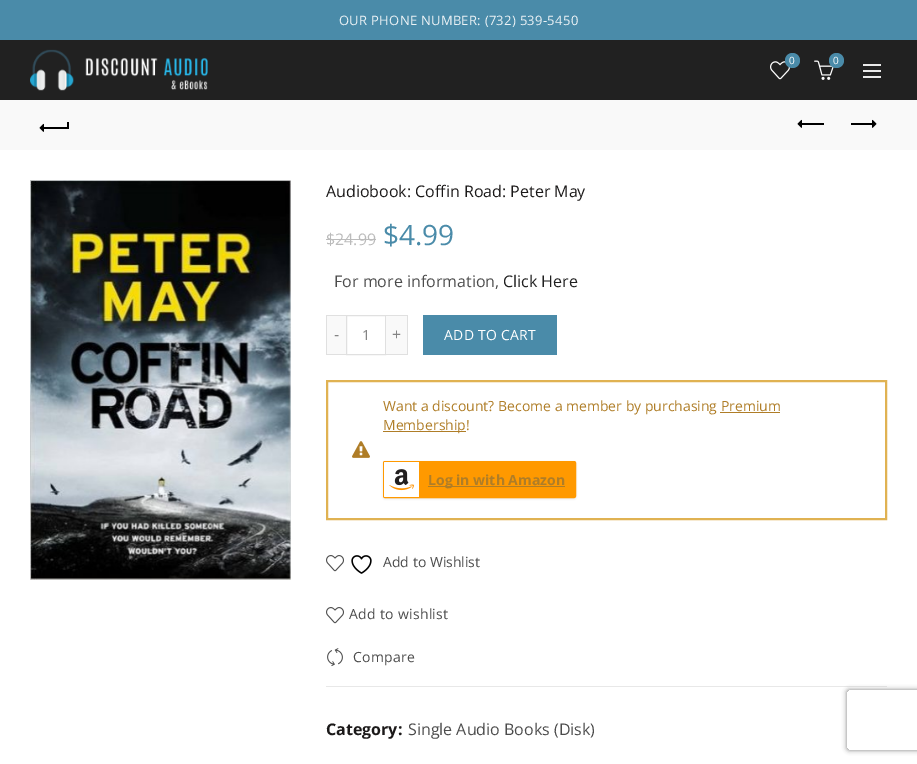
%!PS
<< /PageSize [917 764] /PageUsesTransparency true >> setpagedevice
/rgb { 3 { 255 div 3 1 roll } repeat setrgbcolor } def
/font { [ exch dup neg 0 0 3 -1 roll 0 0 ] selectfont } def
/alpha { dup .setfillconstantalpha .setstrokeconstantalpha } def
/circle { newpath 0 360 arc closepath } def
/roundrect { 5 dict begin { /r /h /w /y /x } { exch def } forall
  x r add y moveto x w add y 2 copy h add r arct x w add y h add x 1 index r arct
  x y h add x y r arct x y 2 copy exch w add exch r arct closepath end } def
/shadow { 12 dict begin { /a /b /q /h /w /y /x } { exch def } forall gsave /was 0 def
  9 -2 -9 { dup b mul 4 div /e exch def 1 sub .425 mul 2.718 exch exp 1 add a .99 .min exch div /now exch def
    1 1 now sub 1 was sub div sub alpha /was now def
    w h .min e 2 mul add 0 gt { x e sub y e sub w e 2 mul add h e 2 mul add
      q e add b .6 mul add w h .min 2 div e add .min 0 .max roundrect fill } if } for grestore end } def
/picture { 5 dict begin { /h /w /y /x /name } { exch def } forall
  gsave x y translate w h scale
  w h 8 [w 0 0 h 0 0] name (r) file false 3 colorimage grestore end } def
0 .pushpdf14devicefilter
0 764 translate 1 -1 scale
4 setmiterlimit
255 255 255 rgb
0 0 917 764 rectfill
74 139 169 rgb
0 0 917 40 rectfill
33 33 33 rgb
0 40 917 60 rectfill
(img/1.rgb) 30 49 178 42 picture
(img/2.rgb) 770 61 20 19 picture
74 139 169 rgb
792.5 60.5 7.5 circle fill
(img/3.rgb) 814 60 20 20 picture
836.5 60.5 7.5 circle fill
[
  [863 70 18 2 233 233 233]
  [863 64 18 2 233 233 233]
  [863 76 18 2 233 233 233]
  [0 100 917 50 249 249 249]
  [43 127 25 2 0 0 0]
] { aload pop rgb rectfill } forall
(img/4.rgb) 39 123 5 9 picture
67 122 2 7 rectfill
801 123 23 2 rectfill
(img/4.rgb) 797 119 5 9 picture
851 123 23 2 rectfill
(img/5.rgb) 872 119 5 9 picture
(img/6.rgb) 30 180 261 400 picture
[
  [326 239 50 1 187 187 187]
  [327 316 19 38 249 249 249]
  [326 315 20 1 224 224 224]
  [326 354 20 1 224 224 224]
  [326 315 1 40 224 224 224]
] { aload pop rgb rectfill } forall
346.5 315.5 39 39 rectstroke
[
  [386 316 21 38 249 249 249]
  [386 315 22 1 224 224 224]
  [407 315 1 40 224 224 224]
  [386 354 22 1 224 224 224]
  [423 315 134 40 74 139 169]
] { aload pop rgb rectfill } forall
224 178 82 rgb
2 setlinewidth
327 381 559 138 rectstroke
175 125 39 rgb
720 412 60 1 rectfill
383 431 83 1 rectfill
(img/7.rgb) 352 441 18 17 picture
0 0 0 rgb
383 462 193 37 2 1 0.1 shadow
255 153 0 rgb
383.5 461.5 192 36 1.5 roundrect gsave fill grestore
1 setlinewidth
stroke
255 255 255 rgb
385 462 moveto 419 462 lineto 419 497 lineto 385 497 lineto 384.5 497 384 496.5 384 496 curveto 384 463 lineto 384 462.5 384.5 462 385 462 curveto closepath fill
(img/8.rgb) 389 469 25 22 picture
175 125 39 rgb
428 486 137 1 rectfill
(img/9.rgb) 326 555 18 17 picture
(img/10.rgb) 351 555 21 19 picture
(img/9.rgb) 326 607 18 17 picture
(img/11.rgb) 327 648 16 19 picture
232 232 232 rgb
326 686 561 1 rectfill
gsave
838 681 moveto 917 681 lineto 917 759 lineto 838 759 lineto closepath 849 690 moveto 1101 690 lineto 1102 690 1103 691 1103 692 curveto 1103 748 lineto 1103 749 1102 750 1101 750 curveto 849 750 lineto 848 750 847 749 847 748 curveto 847 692 lineto 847 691 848 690 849 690 curveto closepath eoclip newpath
128 128 128 rgb
847 690 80 60 2 2.5 1 shadow
grestore
/OpenSans-Regular 13 font
237 243 246 rgb
339 25 moveto 0.3 0 (OUR PHONE NUMBER: \(732\) 539-5450) ashow
/OpenSans-Regular 10 font
255 255 255 rgb
789 64 moveto (0) show
833 64 moveto (0) show
/OpenSans-Regular 16 font
27 25 25 rgb
326 197 moveto (Audiobook: Coffin Road: Peter May) show
187 187 187 rgb
326 245 moveto ($24.99) show
/OpenSans-Regular 28 font
74 139 169 rgb
383 245 moveto ($4.99) show
/OpenSans-Regular 16 font
76 76 76 rgb
334 287 moveto (For more information,) show
32 32 32 rgb
503 287 moveto (Click Here) show
132 132 132 rgb
334 340 moveto (-) show
/OpenSans-Regular 14 font
362 340 moveto (1) show
/OpenSans-Regular 16 font
392 340 moveto (+) show
/OpenSans-Regular 14 font
255 255 255 rgb
444 340 moveto 0.3 0 (ADD TO CART) ashow
175 125 39 rgb
383 411 moveto (Want a discount? Become a member by purchasing Premium) show
383 430 moveto (Membership!) show
/OpenSans-Bold 14 font
428 485 moveto (Log in with Amazon) show
/OpenSans-Regular 14 font
76 76 76 rgb
383 567 moveto (Add to Wishlist) show
349 619 moveto 0.3 0 (Add to wishlist) ashow
353 662 moveto 0.3 0 (Compare) ashow
/OpenSans-Bold 16 font
27 25 25 rgb
326 735 moveto (Category:) show
/OpenSans-Regular 16 font
76 76 76 rgb
408 735 moveto (Single Audio Books \(Disk\)) show
.poppdf14devicefilter showpage
